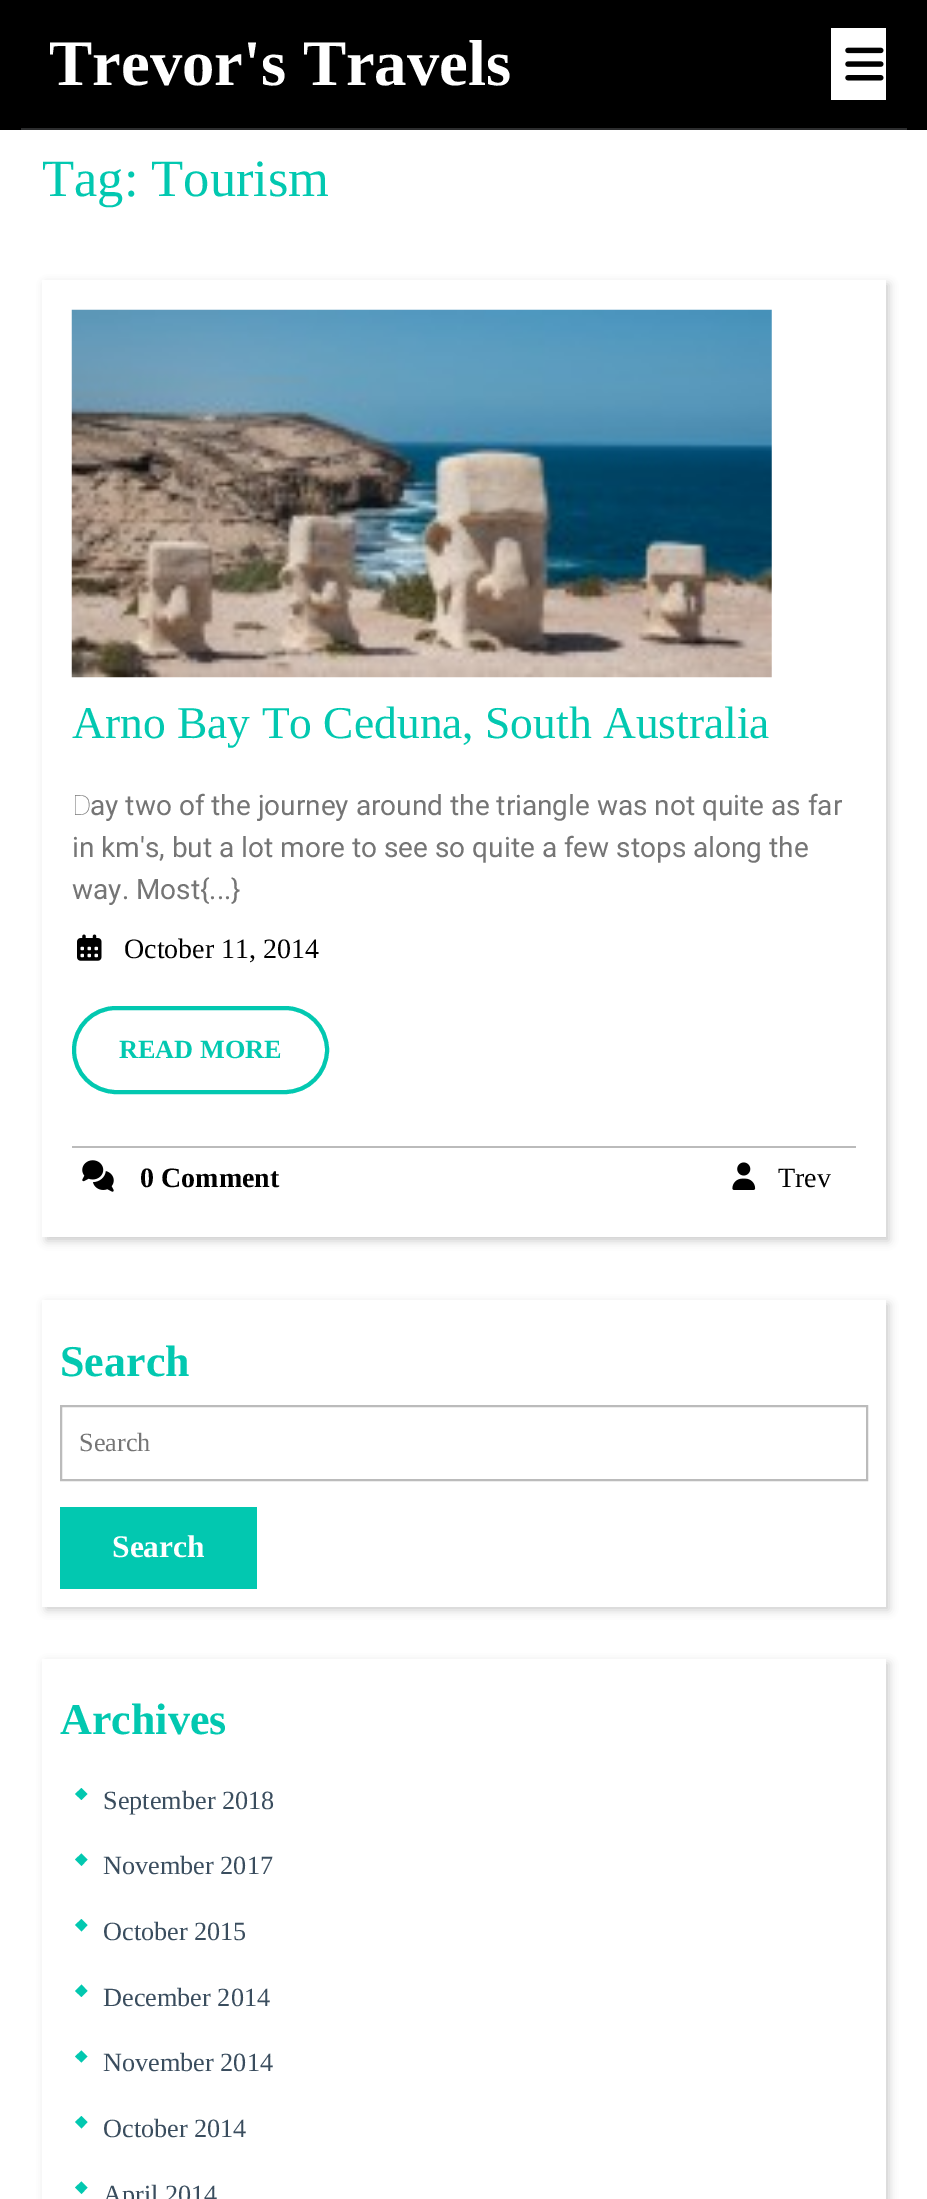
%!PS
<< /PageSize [927 2199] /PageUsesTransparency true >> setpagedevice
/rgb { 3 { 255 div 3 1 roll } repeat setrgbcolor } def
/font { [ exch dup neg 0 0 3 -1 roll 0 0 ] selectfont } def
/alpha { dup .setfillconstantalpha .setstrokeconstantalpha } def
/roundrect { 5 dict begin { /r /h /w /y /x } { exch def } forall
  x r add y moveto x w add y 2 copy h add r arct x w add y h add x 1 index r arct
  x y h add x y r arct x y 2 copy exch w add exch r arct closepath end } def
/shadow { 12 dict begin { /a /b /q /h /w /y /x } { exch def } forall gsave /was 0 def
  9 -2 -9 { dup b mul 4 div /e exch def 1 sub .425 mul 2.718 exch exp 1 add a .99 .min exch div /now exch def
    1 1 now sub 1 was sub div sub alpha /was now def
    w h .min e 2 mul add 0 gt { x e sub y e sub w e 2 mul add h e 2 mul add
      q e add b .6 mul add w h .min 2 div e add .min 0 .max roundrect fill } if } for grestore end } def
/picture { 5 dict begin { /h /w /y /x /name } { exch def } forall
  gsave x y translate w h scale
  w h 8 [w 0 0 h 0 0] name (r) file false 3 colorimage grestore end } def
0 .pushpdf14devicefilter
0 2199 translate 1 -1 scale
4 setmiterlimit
255 255 255 rgb
0 0 927 2199 rectfill
0 0 0 rgb
0 0 927 130 rectfill
255 255 255 rgb
831 28 55 72 rectfill
(img/1.rgb) 845 47 39 34 picture
44 45 46 rgb
21 128 886 2 rectfill
gsave
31 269 moveto 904 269 lineto 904 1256 lineto 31 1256 lineto closepath 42 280 moveto 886 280 lineto 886 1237 lineto 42 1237 lineto closepath eoclip newpath
205 205 205 rgb
46 284 843 957 0 4.5 1 shadow
grestore
(img/2.rgb) 71 309 701 369 picture
(img/3.rgb) 77 934 25 27 picture
2 200 176 rgb
4 setlinewidth
74 1008 253 84 42 roundrect stroke
187 187 187 rgb
72 1146 784 2 rectfill
(img/4.rgb) 82 1160 32 32 picture
(img/5.rgb) 732 1162 24 28 picture
gsave
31 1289 moveto 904 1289 lineto 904 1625 lineto 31 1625 lineto closepath 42 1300 moveto 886 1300 lineto 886 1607 lineto 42 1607 lineto closepath eoclip newpath
205 205 205 rgb
46 1304 843 306 0 4.5 1 shadow
grestore
2 setlinewidth
61 1406 806 74 rectstroke
2 200 176 rgb
60 1507 197 82 rectfill
gsave
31 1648 moveto 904 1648 lineto 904 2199 lineto 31 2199 lineto closepath 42 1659 moveto 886 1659 lineto 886 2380 lineto 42 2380 lineto closepath eoclip newpath
205 205 205 rgb
46 1663 843 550 0 4.5 1 shadow
grestore
81.5 1788 moveto 87.5 1794 lineto 81.5 1800 lineto 75 1794 lineto closepath fill
81.5 1853.5 moveto 87.5 1859.5 lineto 81.5 1866 lineto 75 1859.5 lineto closepath fill
81.5 1919 moveto 87.5 1925 lineto 81.5 1931.5 lineto 75 1925 lineto closepath fill
81.5 1984.5 moveto 87.5 1991 lineto 81.5 1997 lineto 75 1991 lineto closepath fill
81.5 2050.5 moveto 87.5 2056.5 lineto 81.5 2062.5 lineto 75 2056.5 lineto closepath fill
81.5 2116 moveto 87.5 2122 lineto 81.5 2128.5 lineto 75 2122 lineto closepath fill
81.5 2181.5 moveto 87.5 2187.5 lineto 81.5 2194 lineto 75 2187.5 lineto closepath fill
/LiberationSerif-Bold 64.75 font
255 255 255 rgb
49 85 moveto (Trevor's Travels) show
/LiberationSerif-Regular 52.5 font
2 200 176 rgb
42 196 moveto (Tag: Tourism) show
/LiberationSerif-Regular 45.5 font
72 738 moveto (Arno Bay To Ceduna, South Australia) show
/NotoSans-Thin 28 font
117 117 117 rgb
72 815 moveto (D) show
/Roboto-Regular 28 font
[
  [(ay two of the journey around the triangle was not quite as far) 90 815]
  [(in km's, but a lot more to see so quite a few stops along the) 72 857]
  [(way. Most{...}) 72 899]
] { aload pop moveto show } forall
/LiberationSerif-Regular 28 font
0 0 0 rgb
124 958 moveto (October 11, 2014) show
/LiberationSerif-Bold 26.25 font
2 200 176 rgb
119 1058 moveto (READ MORE) show
/LiberationSerif-Bold 28 font
0 0 0 rgb
140 1187 moveto (0 Comment) show
/LiberationSerif-Regular 28 font
778 1187 moveto (Trev) show
/LiberationSerif-Bold 44 font
2 200 176 rgb
60 1376 moveto (Search) show
/LiberationSerif-Regular 26.25 font
117 117 117 rgb
79 1451 moveto (Search) show
/LiberationSerif-Bold 31.5 font
255 255 255 rgb
112 1557 moveto (Search) show
/LiberationSerif-Bold 44 font
2 200 176 rgb
60 1734 moveto (Archives) show
/LiberationSerif-Regular 26.25 font
58 77 94 rgb
[
  [(September 2018) 103 1809]
  [(November 2017) 103 1874]
  [(October 2015) 103 1940]
  [(December 2014) 103 2006]
  [(November 2014) 103 2071]
  [(October 2014) 103 2137]
  [(April 2014) 103 2203]
] { aload pop moveto show } forall
.poppdf14devicefilter showpage
